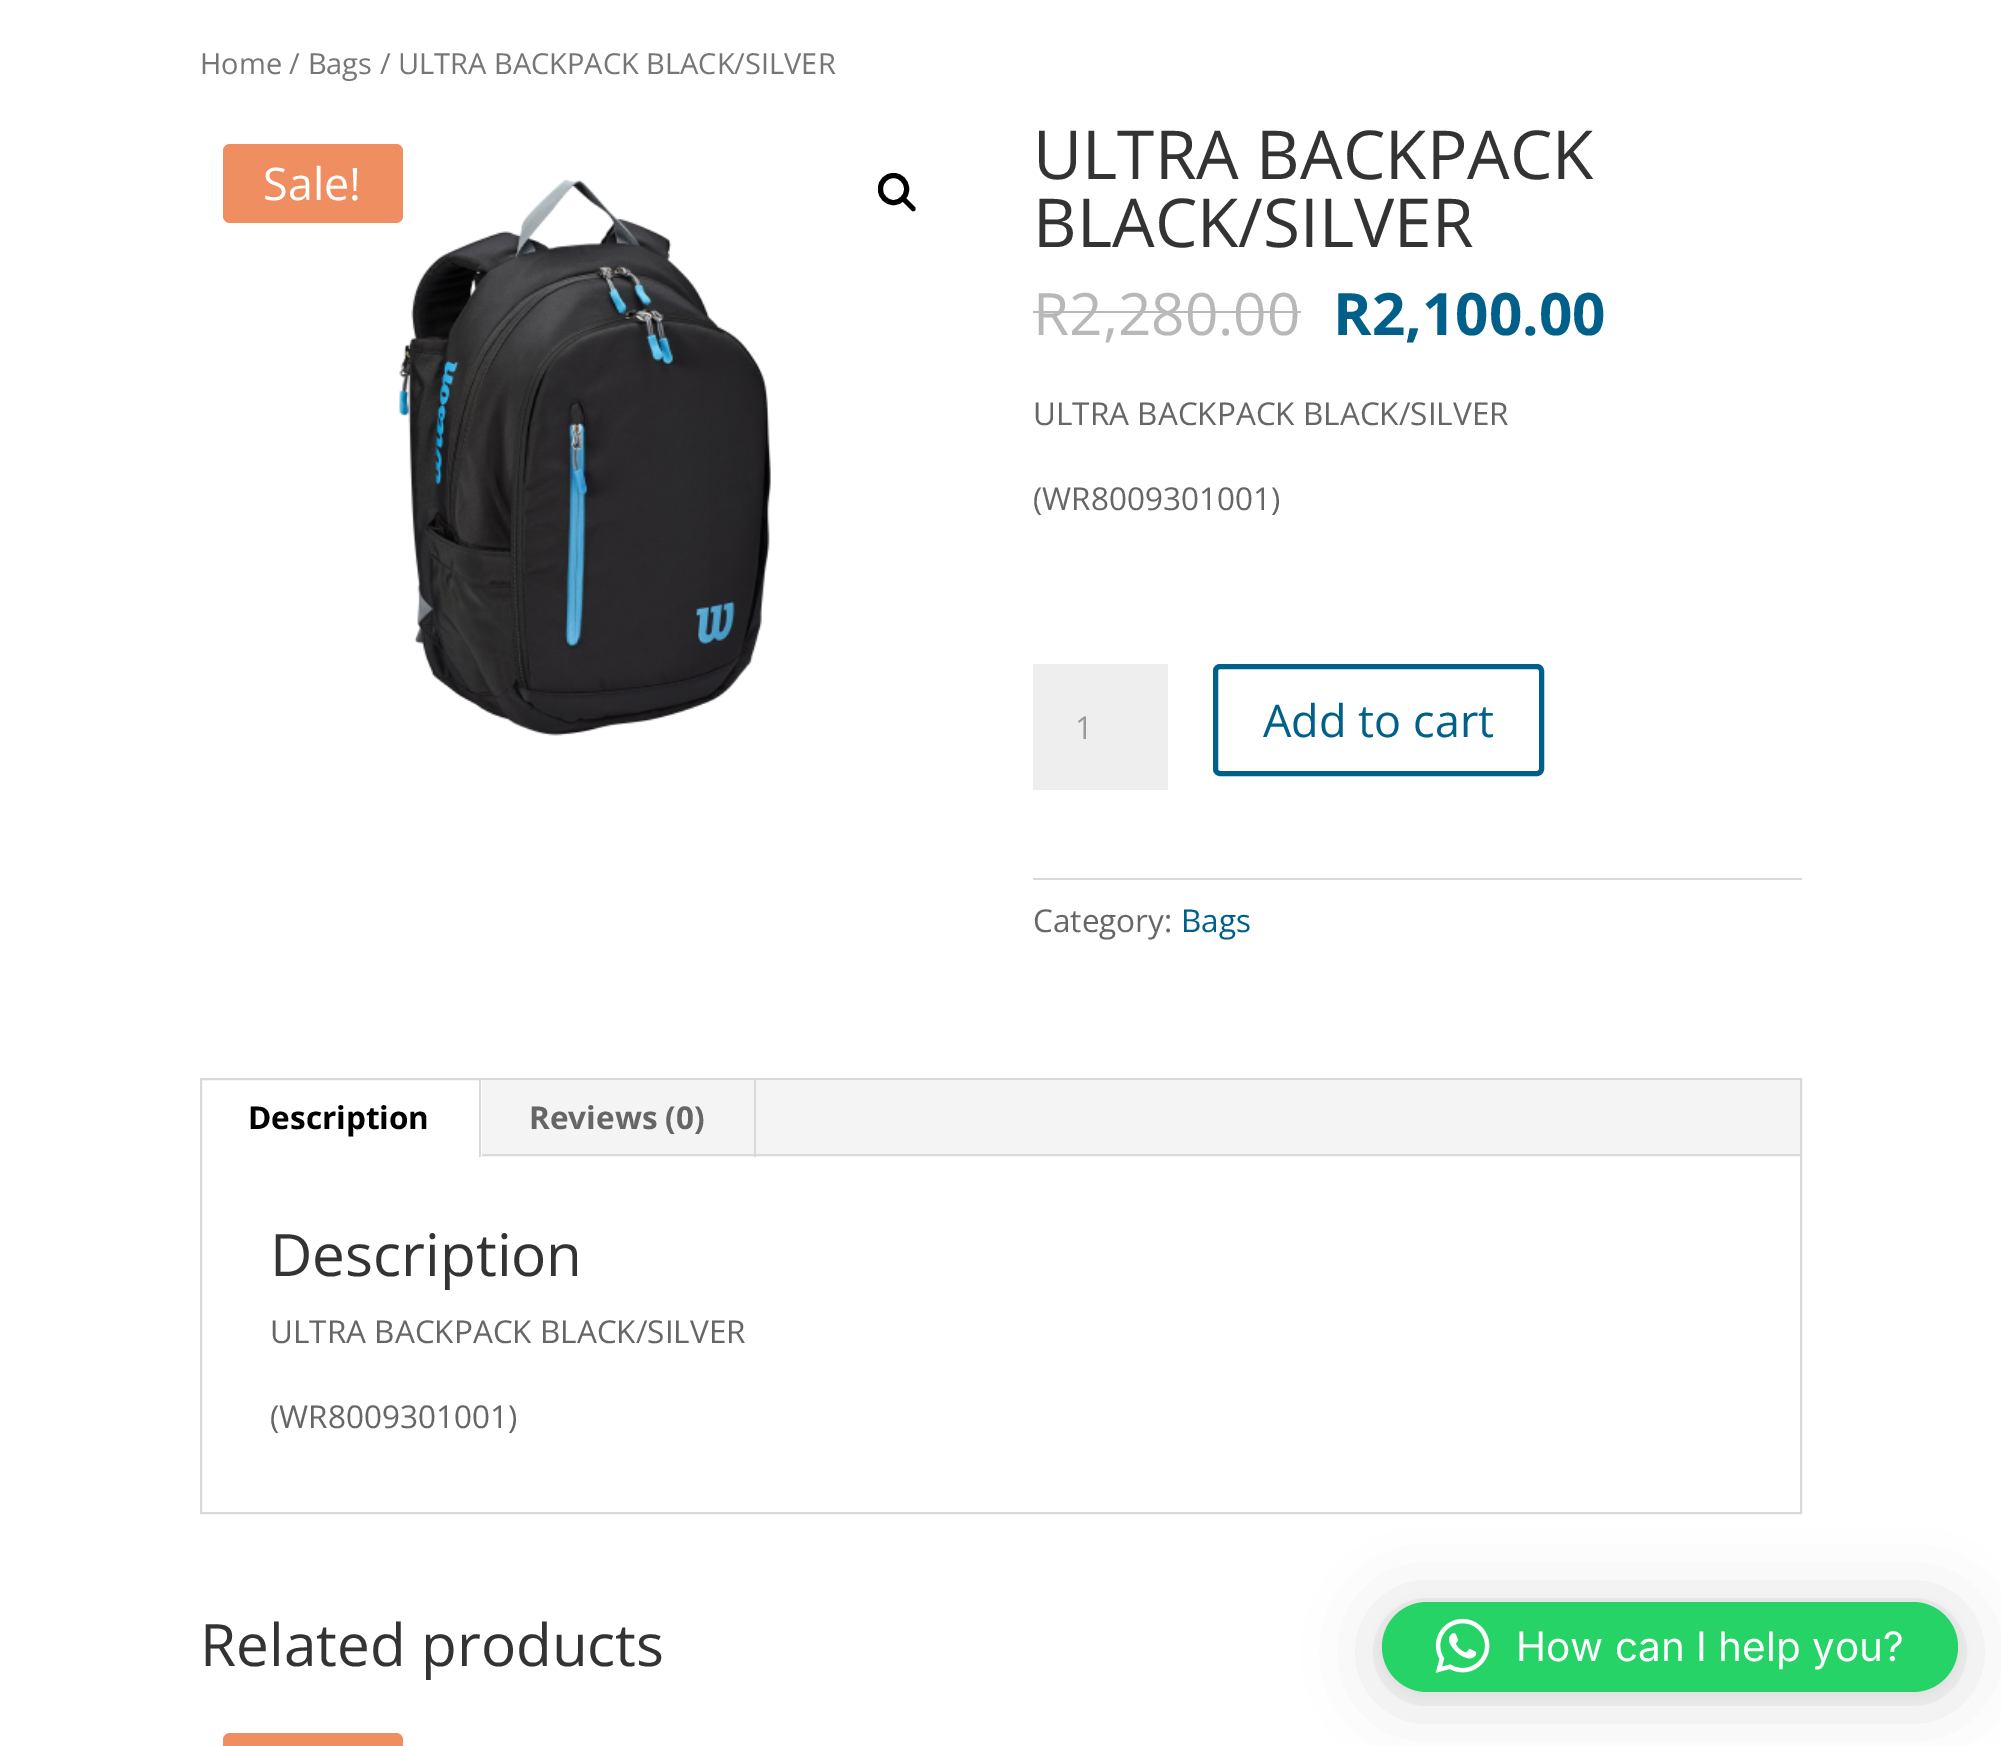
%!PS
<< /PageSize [2001 1746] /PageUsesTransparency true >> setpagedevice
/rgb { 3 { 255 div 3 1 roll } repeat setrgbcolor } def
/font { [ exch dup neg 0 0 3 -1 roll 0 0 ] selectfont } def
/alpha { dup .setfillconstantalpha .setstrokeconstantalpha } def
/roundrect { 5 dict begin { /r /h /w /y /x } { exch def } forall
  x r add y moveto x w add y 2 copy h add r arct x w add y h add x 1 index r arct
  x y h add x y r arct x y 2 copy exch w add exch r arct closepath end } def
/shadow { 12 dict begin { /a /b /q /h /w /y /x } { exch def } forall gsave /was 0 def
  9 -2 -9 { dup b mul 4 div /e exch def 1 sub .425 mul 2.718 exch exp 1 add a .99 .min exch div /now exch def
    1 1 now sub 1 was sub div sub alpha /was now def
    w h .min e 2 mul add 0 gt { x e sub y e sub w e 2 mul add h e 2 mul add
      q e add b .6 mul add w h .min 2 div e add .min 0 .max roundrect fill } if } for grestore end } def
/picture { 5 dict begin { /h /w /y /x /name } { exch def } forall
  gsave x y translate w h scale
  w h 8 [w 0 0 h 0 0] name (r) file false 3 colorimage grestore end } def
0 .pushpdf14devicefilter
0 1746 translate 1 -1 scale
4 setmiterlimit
255 255 255 rgb
0 0 2001 1746 rectfill
(img/1.rgb) 399 179 372 557 picture
239 143 97 rgb
223 144 180 79 7 roundrect fill
0 0 0 rgb
5 setlinewidth
880.5 175.5 26 27 13 roundrect stroke
902 197.5 moveto 903 197 904.5 197 905.5 197.5 curveto 915 207 lineto 915.5 208 915.5 209.5 915 210.5 curveto 914 211.5 912.5 211.5 911.5 210.5 curveto 902 201 lineto 901 200 901 198.5 902 197.5 curveto closepath fill
184 184 184 rgb
1033 311 268 2 rectfill
238 238 238 rgb
1033 664 135 126 rectfill
0 96 138 rgb
1215.5 666.5 326 107 4.5 roundrect stroke
218 218 218 rgb
1033 878 769 2 rectfill
217 217 217 rgb
2 setlinewidth
201 1079 1600 434 rectstroke
[
  [482 1080 1318 77 244 244 244]
  [479 1080 2 77 217 217 217]
  [754 1080 2 77 217 217 217]
  [482 1154 1318 2 217 217 217]
] { aload pop rgb rectfill } forall
239 143 97 rgb
223 1733 180 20 7 roundrect fill
0 0 0 rgb
1382 1607 576 90 45 36 0.16 shadow
1382 1604 576 90 45 7 0.06 shadow
37 211 102 rgb
1382 1602 576 90 45 roundrect fill
(img/2.rgb) 1435 1618 55 55 picture
/OpenSans-Regular 29 font
118 118 118 rgb
200 74 moveto (Home / Bags / ULTRA BACKPACK BLACK/SILVER) show
/OpenSans-Regular 45 font
255 255 255 rgb
263 200 moveto (Sale!) show
/OpenSans-Regular 67.5 font
51 51 51 rgb
1033 179 moveto (ULTRA BACKPACK) show
1033 247 moveto (BLACK/SILVER) show
/OpenSans-Regular 58.5 font
184 184 184 rgb
1033 335 moveto (R2,280.00) show
/OpenSans-Bold 58.5 font
0 96 138 rgb
1333 335 moveto (R2,100.00) show
/OpenSans-Regular 31.5 font
102 102 102 rgb
1033 425 moveto (ULTRA BACKPACK BLACK/SILVER) show
1033 510 moveto (\(WR8009301001\)) show
153 153 153 rgb
1075 739 moveto (1) show
/OpenSans-Regular 45 font
0 96 138 rgb
1263 737 moveto (Add to cart) show
/OpenSans-Regular 31.5 font
102 102 102 rgb
1033 932 moveto (Category:) show
0 96 138 rgb
1181 932 moveto (Bags) show
/OpenSans-Bold 31.5 font
0 0 0 rgb
248 1129 moveto (Description) show
102 102 102 rgb
529 1129 moveto (Reviews \(0\)) show
/OpenSans-Regular 58.5 font
51 51 51 rgb
270 1276 moveto (Description) show
/OpenSans-Regular 31.5 font
102 102 102 rgb
270 1343 moveto (ULTRA BACKPACK BLACK/SILVER) show
270 1428 moveto (\(WR8009301001\)) show
/OpenSans-Regular 58.5 font
51 51 51 rgb
200 1666 moveto (Related products) show
/Inter-Regular 40.5 font
255 255 255 rgb
1516 1661 moveto (How can I help you?) show
.poppdf14devicefilter showpage
